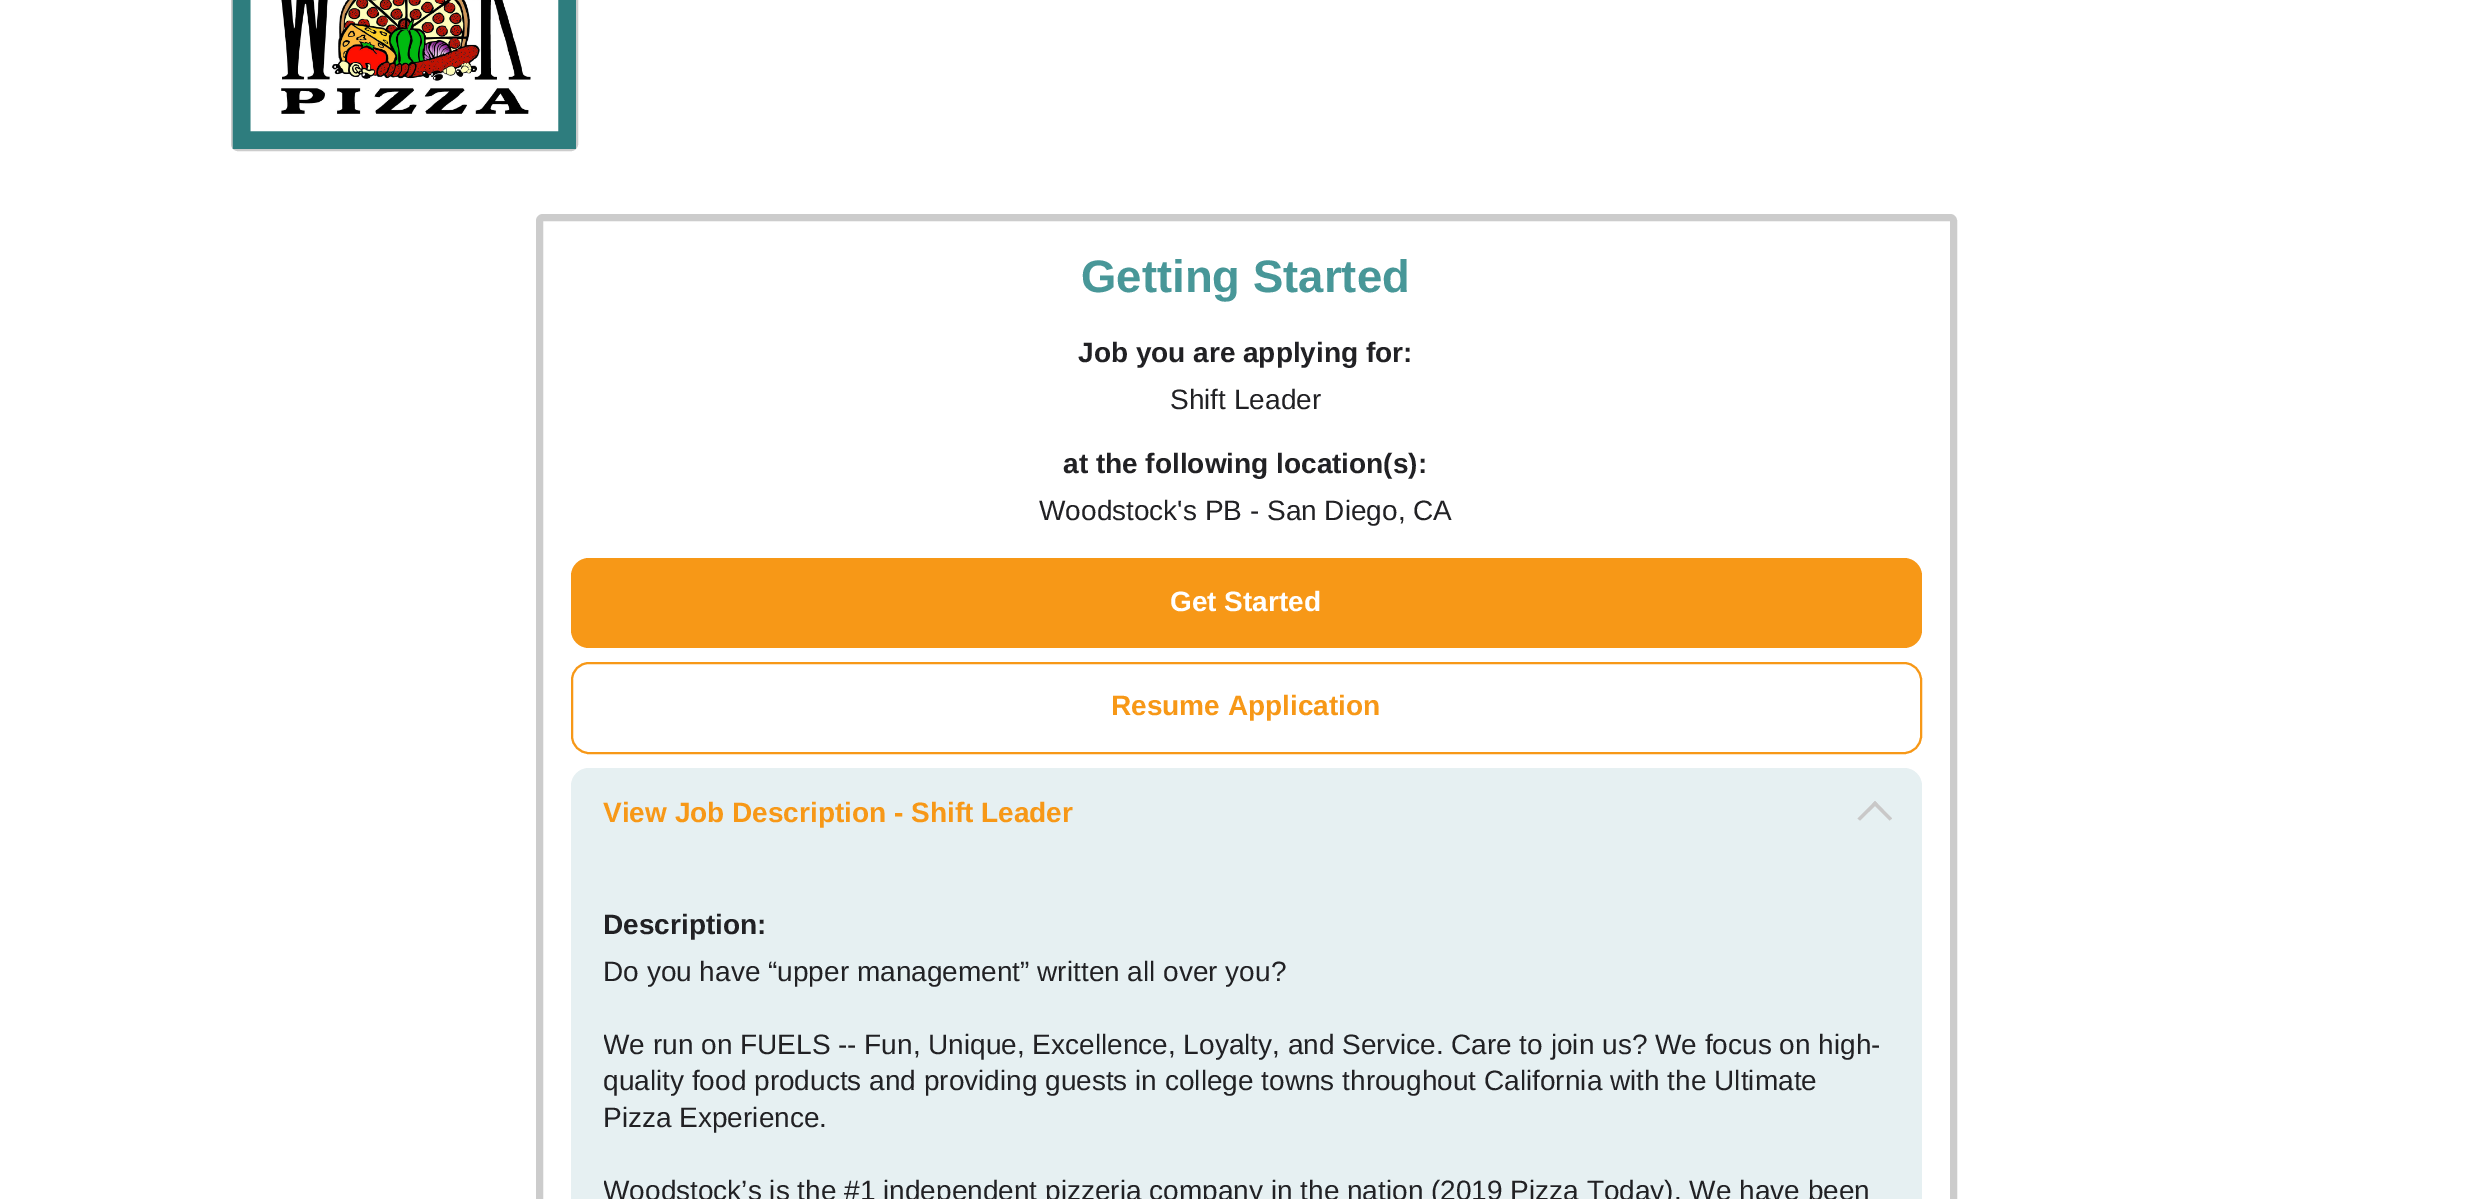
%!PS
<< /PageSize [2489 1199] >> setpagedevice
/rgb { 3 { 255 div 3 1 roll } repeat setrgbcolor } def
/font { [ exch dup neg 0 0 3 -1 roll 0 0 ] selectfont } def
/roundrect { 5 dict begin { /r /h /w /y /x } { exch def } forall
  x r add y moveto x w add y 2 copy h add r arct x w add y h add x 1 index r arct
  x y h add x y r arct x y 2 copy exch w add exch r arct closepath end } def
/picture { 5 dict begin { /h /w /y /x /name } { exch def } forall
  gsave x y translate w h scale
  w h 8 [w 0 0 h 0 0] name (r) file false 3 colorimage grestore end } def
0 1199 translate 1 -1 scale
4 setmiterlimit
255 255 255 rgb
0 0 2489 1199 rectfill
204 204 204 rgb
2 setlinewidth
232 -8 345 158 6 roundrect stroke
46 125 126 rgb
17.5 setlinewidth
241.5 -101.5 moveto 567 -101.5 lineto 567 140 lineto 241.5 140 lineto closepath stroke
(img/1.rgb) 281 0 250 114 picture
204 204 204 rgb
7 setlinewidth
539.5 217.5 1414 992 3.5 roundrect stroke
247 152 23 rgb
571 558 1351 90 18 roundrect fill
2 setlinewidth
572 663 1349 90 17 roundrect stroke
230 240 242 rgb
571 768 1351 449 18 roundrect fill
201 200 200 rgb
1860 820.5 moveto 1857.5 818.5 lineto 1875 801 lineto 1877.5 803.5 lineto closepath fill
1889.5 820.5 moveto 1872.5 803.5 lineto 1875 801 lineto 1892 818.5 lineto closepath fill
/LiberationSans-Bold 45.5 font
72 151 152 rgb
1081 292 moveto (Getting Started) show
/LiberationSans-Bold 28 font
33 33 36 rgb
1078 362 moveto (Job you are applying for:) show
/LiberationSans-Regular 28 font
1170 409 moveto (Shift Leader) show
/LiberationSans-Bold 28 font
1063 473 moveto (at the following location\(s\):) show
/LiberationSans-Regular 28 font
1039 520 moveto (Woodstock's PB - San Diego, CA) show
/LiberationSans-Bold 28 font
255 255 255 rgb
1170 611 moveto (Get Started) show
247 152 23 rgb
1111 715 moveto (Resume Application) show
603 822 moveto (View Job Description - Shift Leader) show
33 33 36 rgb
603 934 moveto (Description:) show
/LiberationSans-Regular 28 font
603 981 moveto (Do you have “upper management” written all over you?) show
gsave
604 872 1283 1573 rectclip
603 1054 moveto (We run on FUELS -- Fun, Unique, Excellence, Loyalty, and Service.) show
grestore
[
  [(Care to join us? We focus on high-) 1451 1054]
  [(quality food products and providing guests in college towns throughout California with the Ultimate) 603 1090]
  [(Pizza Experience.) 603 1127]
] { aload pop moveto show } forall
gsave
604 872 1283 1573 rectclip
603 1200 moveto (Woodstock’s is the #1 independent pizzeria company in the nation \(2019 Pizza Today\). We have been) show
grestore
showpage
